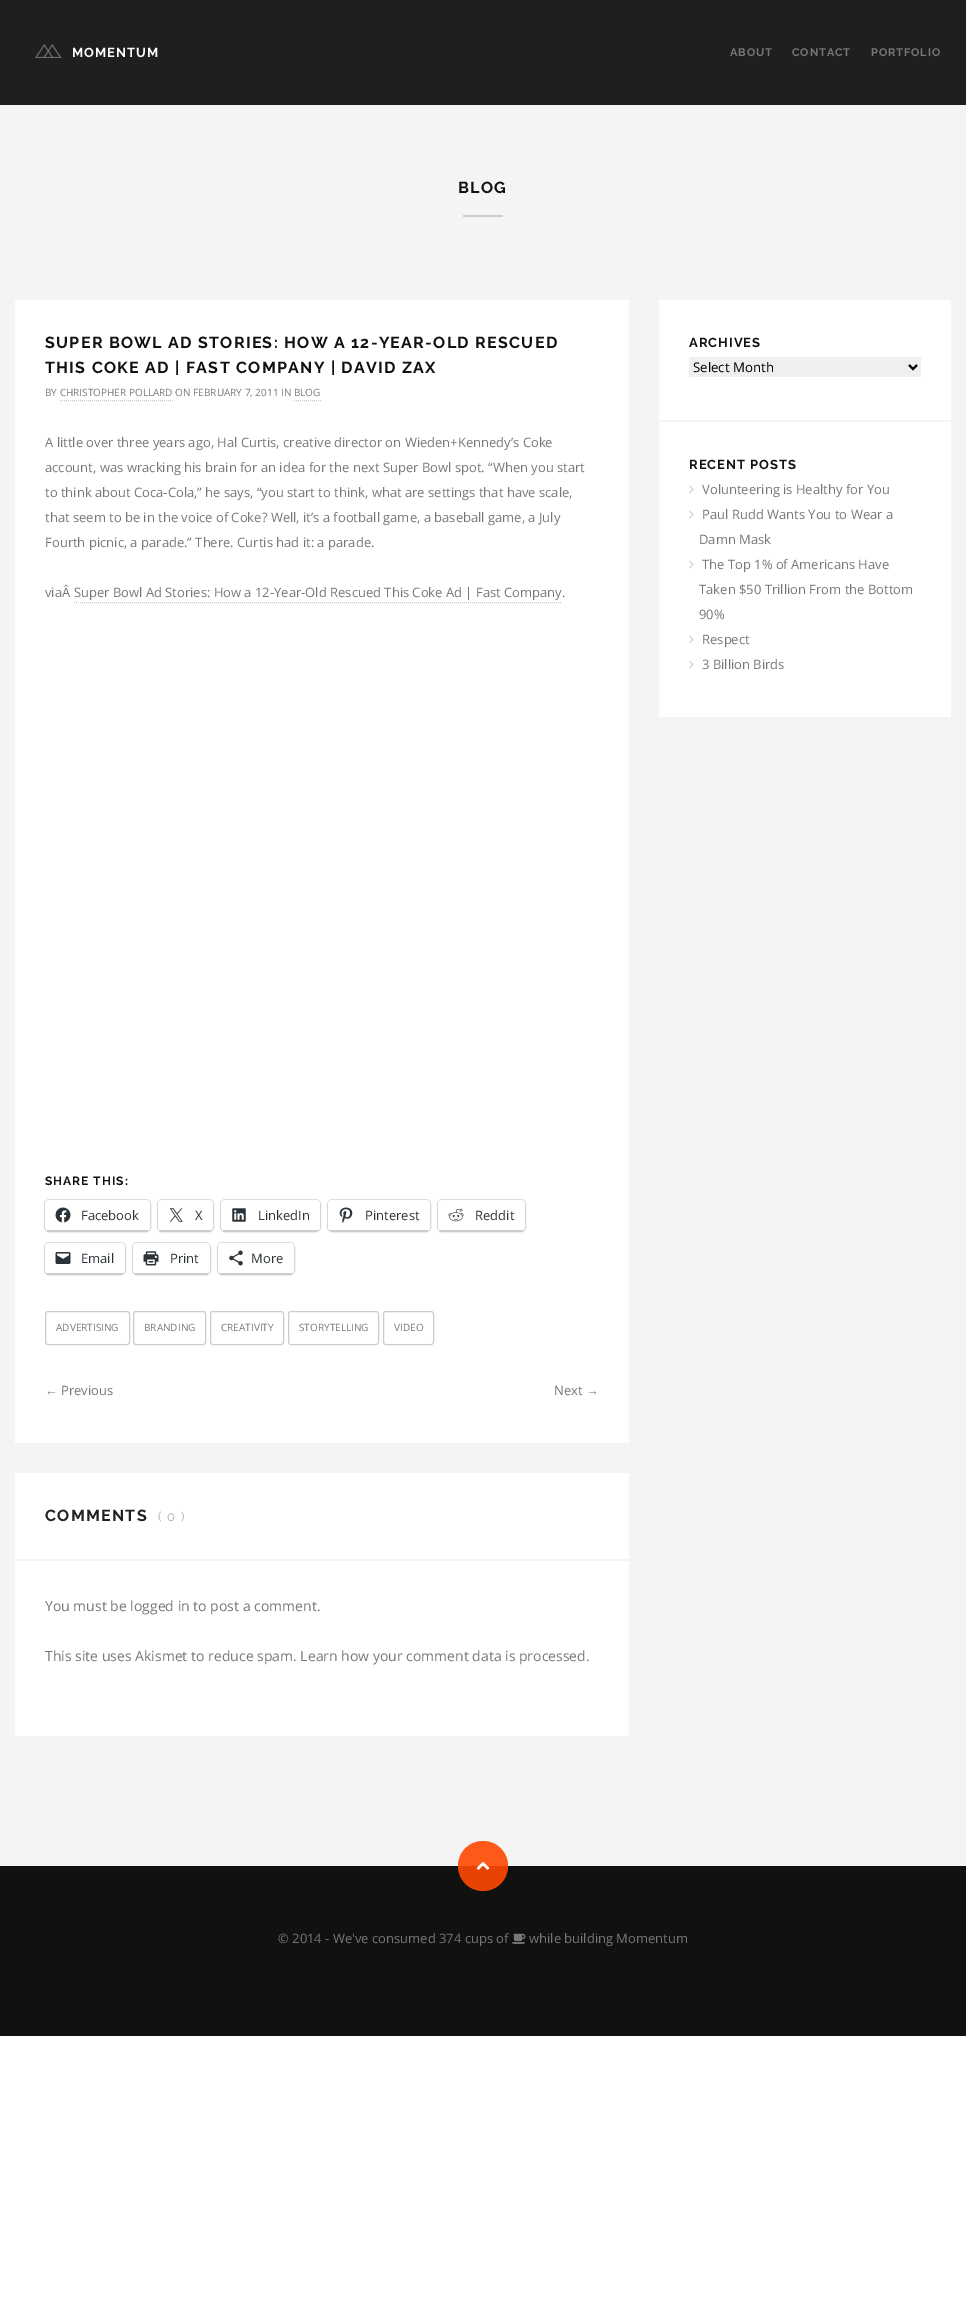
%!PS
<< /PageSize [966 2300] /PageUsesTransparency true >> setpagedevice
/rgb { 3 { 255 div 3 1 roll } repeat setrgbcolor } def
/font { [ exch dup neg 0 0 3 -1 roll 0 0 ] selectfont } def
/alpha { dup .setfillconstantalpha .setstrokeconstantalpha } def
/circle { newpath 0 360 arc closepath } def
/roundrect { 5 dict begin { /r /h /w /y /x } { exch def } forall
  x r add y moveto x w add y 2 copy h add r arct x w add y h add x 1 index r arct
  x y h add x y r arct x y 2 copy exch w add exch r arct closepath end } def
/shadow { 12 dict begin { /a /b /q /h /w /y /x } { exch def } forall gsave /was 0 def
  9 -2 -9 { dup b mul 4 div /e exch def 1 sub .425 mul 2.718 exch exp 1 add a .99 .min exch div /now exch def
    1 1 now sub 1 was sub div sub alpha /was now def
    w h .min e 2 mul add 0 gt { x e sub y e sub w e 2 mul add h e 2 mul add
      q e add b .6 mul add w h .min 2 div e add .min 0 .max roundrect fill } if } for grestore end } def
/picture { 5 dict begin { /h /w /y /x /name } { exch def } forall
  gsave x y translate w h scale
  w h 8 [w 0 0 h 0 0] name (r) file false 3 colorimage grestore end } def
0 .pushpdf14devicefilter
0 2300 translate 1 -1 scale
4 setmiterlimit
255 255 255 rgb
0 0 966 2300 rectfill
31 31 31 rgb
0 0 966 105 rectfill
(img/1.rgb) 35 44 27 14 picture
[
  [0 105 966 1761 244 244 244]
  [463 215 40 2 204 204 204]
  [15 300 614 1143 255 255 255]
] { aload pop rgb rectfill } forall
204 204 204 rgb
[1 1] 0 setdash
60 400.5 moveto 173 400.5 lineto stroke
294 400.5 moveto 321 400.5 lineto stroke
74 602.5 moveto 562 602.5 lineto stroke
224 224 224 rgb
[] 0 setdash
44.5 1199.5 106 32 4.5 roundrect stroke
0 0 0 rgb
45 1201 105 31 4 1 0.12 shadow
255 255 255 rgb
45 1200 105 31 4 roundrect fill
204 204 204 rgb
47 1230 101 1 rectfill
(img/2.rgb) 55 1207 16 16 picture
224 224 224 rgb
157.5 1199.5 56 32 4.5 roundrect stroke
0 0 0 rgb
158 1201 55 31 4 1 0.12 shadow
255 255 255 rgb
158 1200 55 31 4 roundrect fill
204 204 204 rgb
160 1230 51 1 rectfill
(img/3.rgb) 169 1208 14 14 picture
224 224 224 rgb
220.5 1199.5 100 32 4.5 roundrect stroke
0 0 0 rgb
221 1201 99 31 4 1 0.12 shadow
255 255 255 rgb
221 1200 99 31 4 roundrect fill
204 204 204 rgb
223 1230 95 1 rectfill
(img/4.rgb) 232 1208 14 14 picture
224 224 224 rgb
327.5 1199.5 103 32 4.5 roundrect stroke
0 0 0 rgb
328 1201 102 31 4 1 0.12 shadow
255 255 255 rgb
328 1200 102 31 4 roundrect fill
204 204 204 rgb
330 1230 98 1 rectfill
(img/5.rgb) 339 1207 14 16 picture
224 224 224 rgb
437.5 1199.5 88 32 4.5 roundrect stroke
0 0 0 rgb
438 1201 87 31 4 1 0.12 shadow
255 255 255 rgb
438 1200 87 31 4 roundrect fill
204 204 204 rgb
440 1230 83 1 rectfill
(img/6.rgb) 448 1208 16 14 picture
224 224 224 rgb
44.5 1242.5 81 32 4.5 roundrect stroke
0 0 0 rgb
45 1244 80 31 4 1 0.12 shadow
255 255 255 rgb
45 1243 80 31 4 roundrect fill
204 204 204 rgb
47 1273 76 1 rectfill
(img/7.rgb) 55 1252 16 12 picture
224 224 224 rgb
132.5 1242.5 78 32 4.5 roundrect stroke
0 0 0 rgb
133 1244 77 31 4 1 0.12 shadow
255 255 255 rgb
133 1243 77 31 4 roundrect fill
204 204 204 rgb
135 1273 73 1 rectfill
(img/8.rgb) 143 1251 16 15 picture
224 224 224 rgb
217.5 1242.5 77 32 4.5 roundrect stroke
0 0 0 rgb
218 1244 76 31 4 1 0.12 shadow
255 255 255 rgb
218 1243 76 31 4 roundrect fill
204 204 204 rgb
220 1273 72 1 rectfill
(img/9.rgb) 229 1250 14 16 picture
45.5 1311.5 84 33 2.5 roundrect stroke
133.5 1311.5 72 33 2.5 roundrect stroke
210.5 1311.5 73 33 2.5 roundrect stroke
288.5 1311.5 90 33 2.5 roundrect stroke
383.5 1311.5 50 33 2.5 roundrect stroke
[
  [15 1473 614 86 255 255 255]
  [15 1561 614 175 255 255 255]
  [659 300 292 120 255 255 255]
  [689 357 232 20 239 239 239]
] { aload pop rgb rectfill } forall
0 0 0 rgb
2 setlinewidth
909 365 moveto 913 369 lineto 917 365 lineto stroke
255 255 255 rgb
659 422 292 295 rectfill
(img/10.rgb) 689 485 5 9 picture
(img/10.rgb) 689 510 5 9 picture
(img/10.rgb) 689 560 5 9 picture
(img/10.rgb) 689 635 5 9 picture
(img/10.rgb) 689 660 5 9 picture
17 17 17 rgb
0 1866 966 170 rectfill
0.9 alpha
255 72 0 rgb
483 1866 25 circle fill
1 alpha
(img/11.rgb) 476 1861 14 9 picture
(img/12.rgb) 512 1933 14 11 picture
/Raleway-Bold 13 font
255 255 255 rgb
72 57 moveto 1 0 (MOMENTUM) ashow
/Raleway-Bold 11 font
119 119 119 rgb
730 56 moveto 0.9 0 (ABOUT) ashow
792 56 moveto 0.9 0 (CONTACT) ashow
871 56 moveto 0.9 0 (PORTFOLIO) ashow
/Raleway-Bold 16 font
17 17 17 rgb
458 193 moveto 1.3 0 (BLOG) ashow
45 348 moveto 1.3 0 (SUPER BOWL AD STORIES: HOW A 12-YEAR-OLD RESCUED) ashow
45 373 moveto 1.3 0 (THIS COKE AD | FAST COMPANY | DAVID ZAX) ashow
/OpenSans-Regular 10 font
119 119 119 rgb
45 396 moveto (BY CHRISTOPHER POLLARD ON FEBRUARY 7, 2011 IN BLOG) show
/OpenSans-Regular 13 font
[
  [(A little over three years ago, Hal Curtis, creative director on Wieden+Kennedy’s Coke) 45 447]
  [(account, was wracking his brain for an idea for the next Super Bowl spot. “When you start) 45 472]
  [(to think about Coca-Cola,” he says, “you start to think, what are settings that have scale,) 45 497]
  [(that seem to be in the voice of Coke? Well, it’s a football game, a baseball game, a July) 45 522]
  [(Fourth picnic, a parade.” There. Curtis had it: a parade.) 45 547]
  [(viaÂ Super Bowl Ad Stories: How a 12-Year-Old Rescued This Coke Ad | Fast Company.) 45 597]
] { aload pop moveto show } forall
/Raleway-Bold 12 font
17 17 17 rgb
45 1185 moveto 1 0 (SHARE THIS:) ashow
/OpenSans-Regular 13 font
44 51 56 rgb
[
  [(Facebook) 81 1220]
  [(X) 195 1220]
  [(LinkedIn) 258 1220]
  [(Pinterest) 365 1220]
  [(Reddit) 475 1220]
  [(Email) 81 1263]
  [(Print) 170 1263]
  [(More) 251 1263]
] { aload pop moveto show } forall
/OpenSans-Regular 10 font
119 119 119 rgb
[
  [(ADVERTISING) 56 1331]
  [(BRANDING) 144 1331]
  [(CREATIVITY) 221 1331]
  [(STORYTELLING) 299 1331]
  [(VIDEO) 394 1331]
] { aload pop moveto show } forall
/LiberationSerif-Regular 13 font
45 1395 moveto (←) show
/OpenSans-Regular 13 font
61 1395 moveto (Previous) show
554 1395 moveto (Next) show
/LiberationSerif-Regular 13 font
586 1395 moveto (→) show
/Raleway-Bold 16 font
33 33 33 rgb
45 1521 moveto 1.3 0 (COMMENTS) ashow
/Raleway-Regular 13 font
170 170 170 rgb
158 1521 moveto 1.3 0 (\( 0 \)) ashow
/OpenSans-Regular 14 font
119 119 119 rgb
45 1611 moveto (You must be logged in to post a comment.) show
45 1661 moveto (This site uses Akismet to reduce spam. Learn how your comment data is processed.) show
/Raleway-Bold 13 font
17 17 17 rgb
689 347 moveto 1 0 (ARCHIVES) ashow
/OpenSans-Regular 13.25 font
0 0 0 rgb
693 372 moveto (Select Month) show
/Raleway-Bold 13 font
17 17 17 rgb
689 469 moveto 1 0 (RECENT POSTS) ashow
/OpenSans-Regular 13 font
119 119 119 rgb
[
  [(Volunteering is Healthy for You) 702 494]
  [(Paul Rudd Wants You to Wear a) 702 519]
  [(Damn Mask) 699 544]
  [(The Top 1% of Americans Have) 702 569]
  [(Taken $50 Trillion From the Bottom) 699 594]
  [(90%) 699 619]
  [(Respect) 702 644]
  [(3 Billion Birds) 702 669]
  [(© 2014 - We've consumed 374 cups of) 278 1943]
  [(while building Momentum) 529 1943]
] { aload pop moveto show } forall
.poppdf14devicefilter showpage
